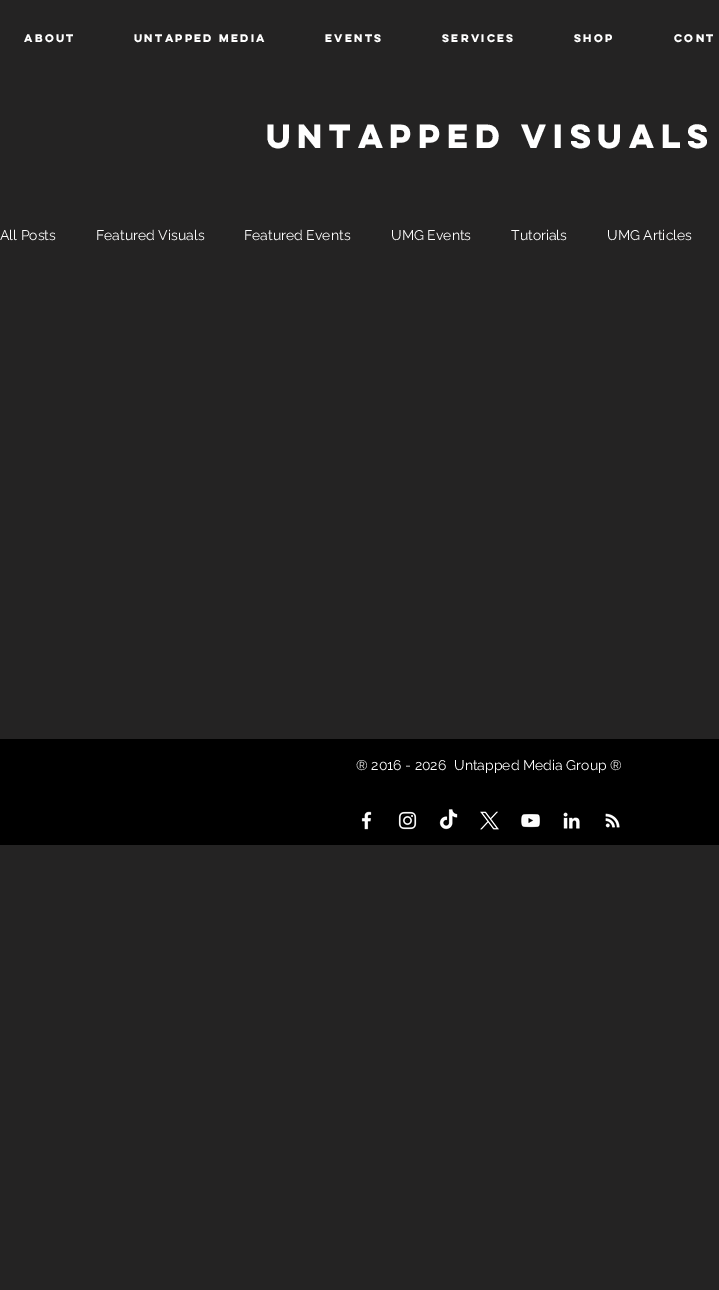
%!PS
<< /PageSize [719 1290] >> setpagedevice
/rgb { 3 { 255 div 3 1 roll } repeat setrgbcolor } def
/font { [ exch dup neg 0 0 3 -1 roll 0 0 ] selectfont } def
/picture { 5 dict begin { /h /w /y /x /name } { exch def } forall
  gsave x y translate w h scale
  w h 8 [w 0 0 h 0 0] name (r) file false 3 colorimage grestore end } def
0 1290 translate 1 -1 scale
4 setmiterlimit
36 35 35 rgb
0 0 719 1290 rectfill
0 0 0 rgb
0 739 719 106 rectfill
(img/1.rgb) 361 811 11 19 picture
(img/2.rgb) 398 811 19 19 picture
(img/3.rgb) 439 809 19 21 picture
(img/4.rgb) 480 811 19 19 picture
(img/5.rgb) 521 814 19 14 picture
(img/6.rgb) 563 812 17 17 picture
(img/7.rgb) 605 813 15 15 picture
/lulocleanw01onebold-Bold 10 font
255 255 255 rgb
[
  [(About) 24 42]
  [(Untapped Media) 134 42]
  [(Events) 325 42]
  [(Services) 442 42]
  [(Shop) 574 42]
  [(Cont) 674 42]
] { aload pop moveto show } forall
/lulocleanw01onebold-Bold 30 font
266 148 moveto (untapped Visuals) show
/Raleway-Regular 14 font
[
  [(All Posts) 0 240]
  [(Featured Visuals) 96 240]
  [(Featured Events) 244 240]
  [(UMG Events) 391 240]
  [(Tutorials) 511 240]
  [(UMG Articles) 607 240]
  [(® 2016 - 2026) 356 770]
  [(Untapped Media Group ®) 454 770]
] { aload pop moveto show } forall
showpage
